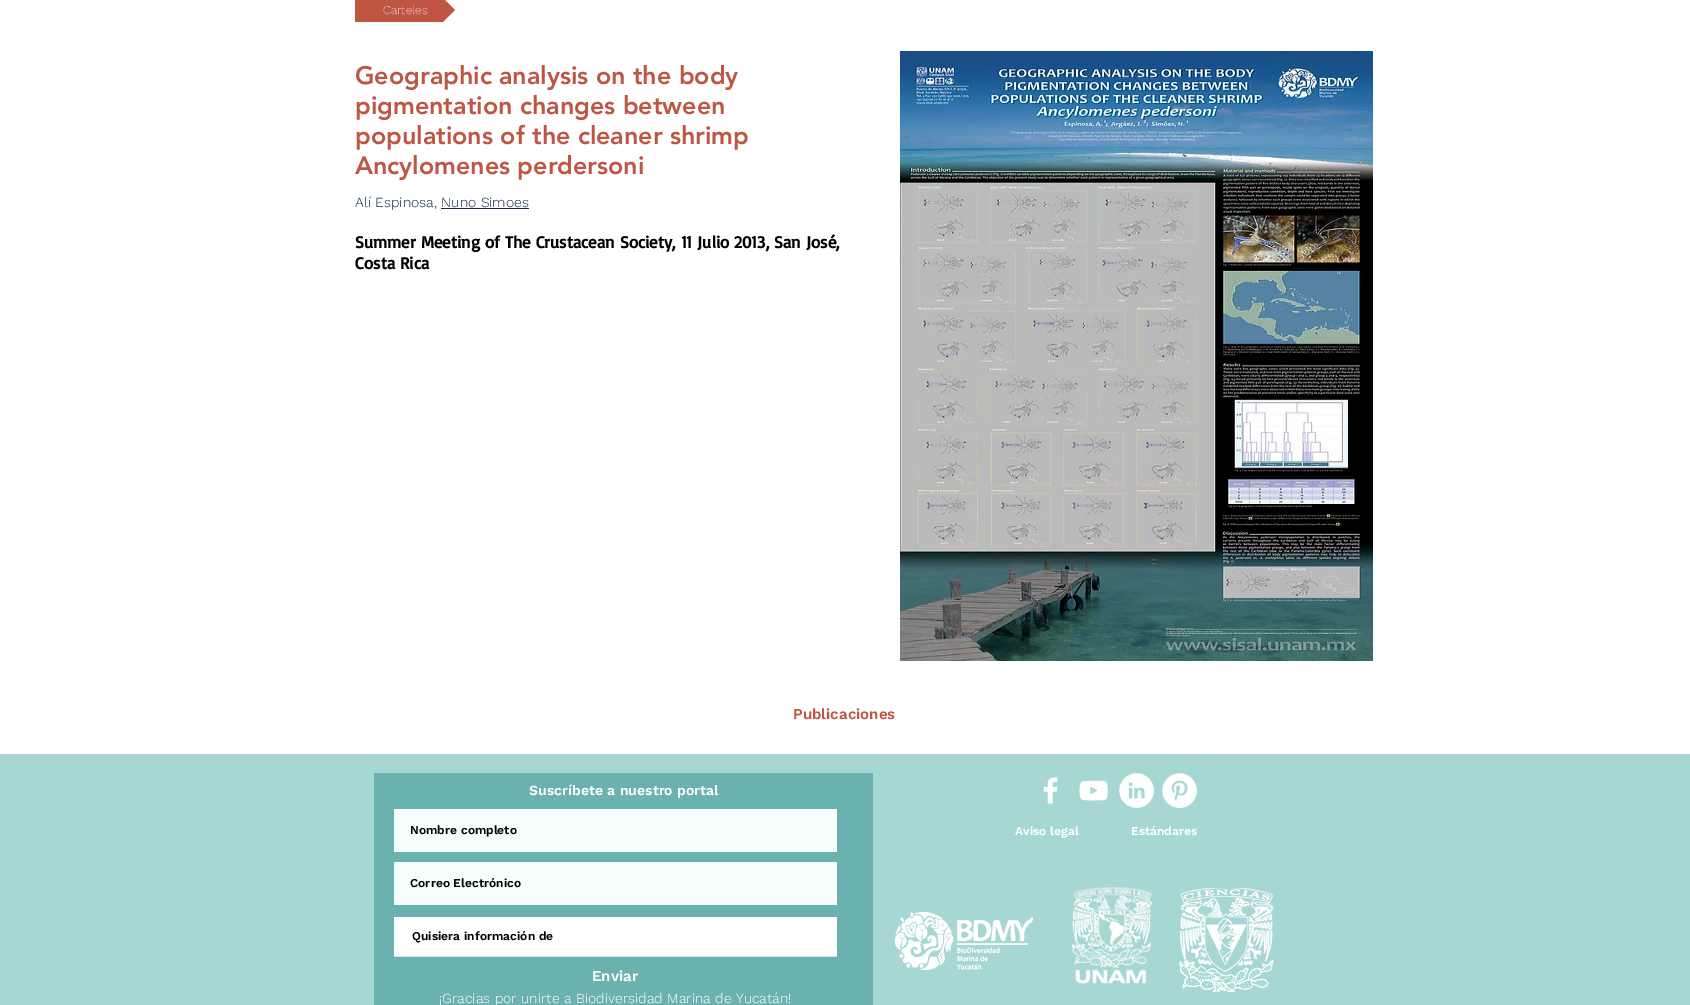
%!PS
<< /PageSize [1690 1005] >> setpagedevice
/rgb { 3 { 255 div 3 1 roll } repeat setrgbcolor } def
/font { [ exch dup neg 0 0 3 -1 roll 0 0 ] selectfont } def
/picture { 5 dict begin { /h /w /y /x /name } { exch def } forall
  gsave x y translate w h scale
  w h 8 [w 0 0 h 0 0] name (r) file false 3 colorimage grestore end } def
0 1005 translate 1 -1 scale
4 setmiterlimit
255 255 255 rgb
0 0 1690 1005 rectfill
191 86 68 rgb
355 0 50 22 rectfill
455 10 moveto 405 10 lineto 405 -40 lineto closepath fill
gsave
355 0 100 22 rectclip
405 10 moveto 455 10 lineto 405 60 lineto closepath fill
grestore
(img/1.rgb) 900 51 473 610 picture
[
  [441 208 88 1 23 42 71]
  [0 754 1690 251 167 215 210]
  [374 773 499 232 106 177 176]
  [394 809 443 43 245 255 254]
  [394 862 443 43 245 255 254]
  [394 917 443 39 255 255 255]
  [394 956 443 1 198 226 247]
] { aload pop rgb rectfill } forall
(img/2.rgb) 1043 777 15 27 picture
(img/3.rgb) 1079 780 29 21 picture
(img/4.rgb) 1119 773 35 35 picture
(img/5.rgb) 1162 773 35 35 picture
(img/6.rgb) 895 912 138 58 picture
(img/7.rgb) 1071 887 82 97 picture
(img/8.rgb) 1179 888 95 104 picture
/WorkSans-ExtraLight 12 font
255 255 255 rgb
383 14 moveto (Carteles) show
/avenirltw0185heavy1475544-Black 25 font
191 86 68 rgb
[
  [(Geographic analysis on the body) 355 84]
  [(pigmentation changes between) 355 114]
  [(populations of the cleaner shrimp) 355 144]
  [(Ancylomenes perdersoni) 355 174]
] { aload pop moveto show } forall
/WorkSans-Light 14 font
23 42 71 rgb
355 207 moveto (Alí Espinosa, Nuno Simoes) show
/Basic-Bold 17 font
0 0 0 rgb
355 248 moveto (Summer Meeting of The Crustacean Society, 11 Julio 2013, San José,) show
355 269 moveto (Costa Rica) show
/WorkSans-SemiBold 15 font
191 86 68 rgb
793 719 moveto (Publicaciones) show
/WorkSans-SemiBold 14 font
255 255 255 rgb
529 795 moveto (Suscríbete a nuestro portal) show
/WorkSans-SemiBold 12 font
0 0 0 rgb
[
  [(Nombre completo) 410 834]
  [(Correo Electrónico) 410 887]
  [(Quisiera información de) 412 940]
] { aload pop moveto show } forall
/WorkSans-SemiBold 15 font
255 255 255 rgb
592 981 moveto (Enviar) show
/WorkSans-Light 14 font
439 1003 moveto (¡Gracias por unirte a Biodiversidad Marina de Yucatán!) show
/WorkSans-SemiBold 12 font
1015 835 moveto (Aviso legal) show
1131 835 moveto (Estándares) show
showpage
